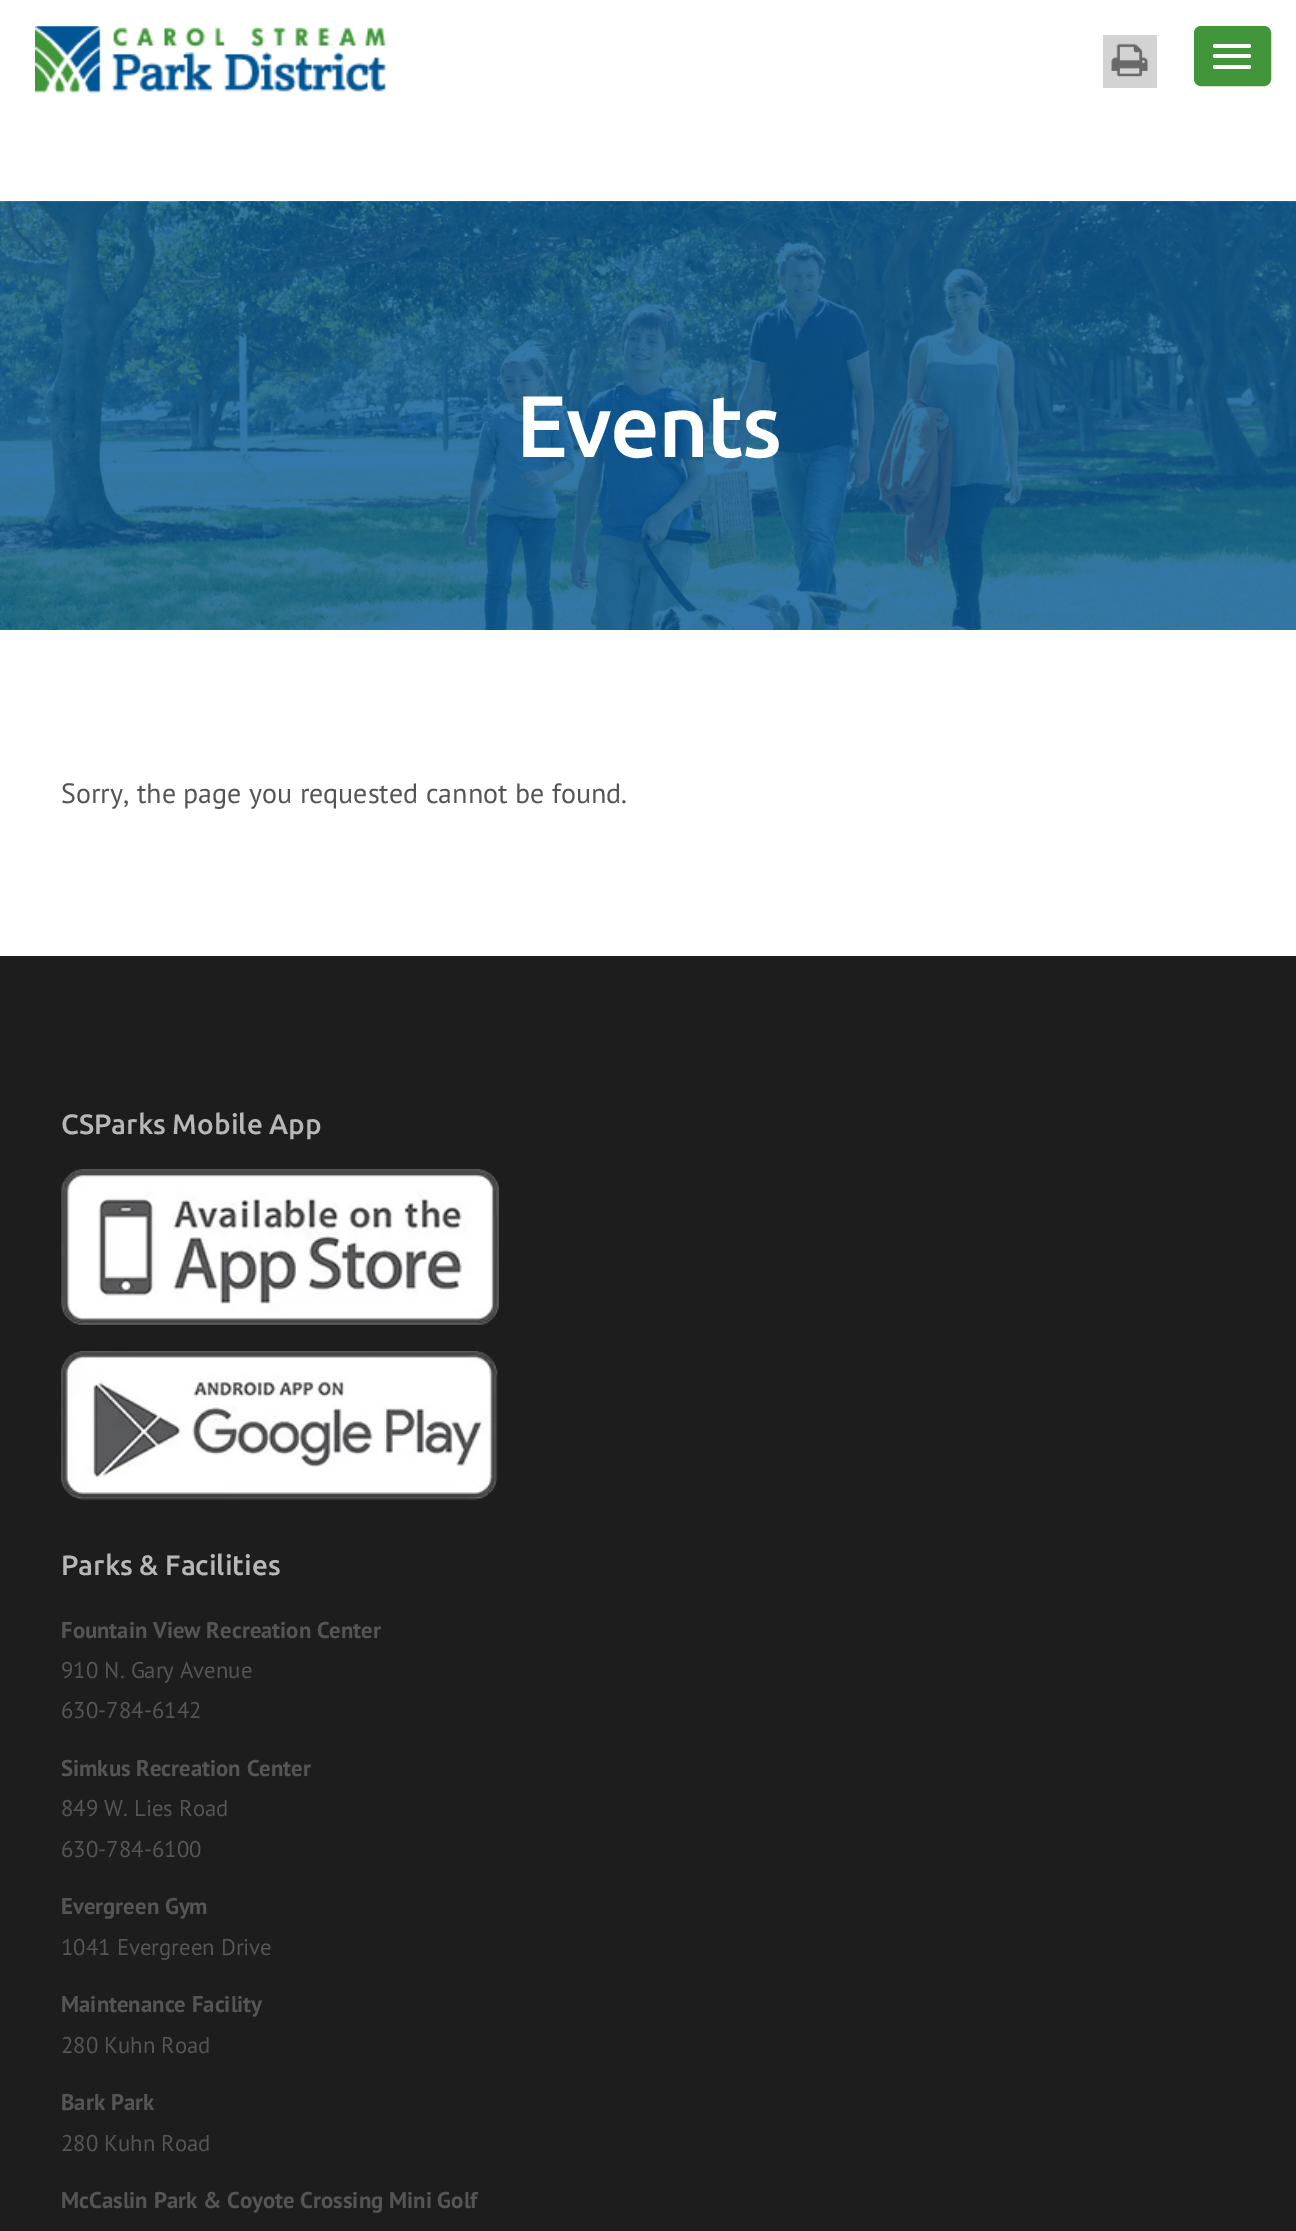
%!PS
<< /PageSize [1296 2231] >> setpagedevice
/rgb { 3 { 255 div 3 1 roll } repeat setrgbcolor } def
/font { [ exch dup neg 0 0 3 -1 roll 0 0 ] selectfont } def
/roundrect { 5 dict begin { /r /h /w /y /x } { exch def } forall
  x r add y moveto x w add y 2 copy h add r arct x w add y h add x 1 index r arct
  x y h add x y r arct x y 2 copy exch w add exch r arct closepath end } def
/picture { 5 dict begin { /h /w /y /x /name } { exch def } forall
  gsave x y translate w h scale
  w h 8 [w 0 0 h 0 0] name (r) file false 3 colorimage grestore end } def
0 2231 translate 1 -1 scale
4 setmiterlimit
255 255 255 rgb
0 0 1296 2231 rectfill
(img/1.rgb) 35 26 351 68 picture
65 150 57 rgb
1195 27 75 58 6 roundrect gsave fill grestore
2 setlinewidth
stroke
255 255 255 rgb
1213 44 38 4 2 roundrect fill
1213 54 38 4 2 roundrect fill
1213 65 38 4 2 roundrect fill
211 211 211 rgb
1103 35 54 53 rectfill
(img/2.rgb) 1111 43 37 34 picture
(img/3.rgb) 0 201 1296 429 picture
29 29 29 rgb
0 956 1296 1275 rectfill
(img/4.rgb) 61 1169 438 156 picture
(img/5.rgb) 61 1351 437 150 picture
/Ubuntu-Medium 87.5 font
255 255 255 rgb
516 457 moveto -1.75 0 (Events) ashow
/PTSans-Regular 28 font
85 85 85 rgb
61 803 moveto (Sorry, the page you requested cannot be found.) show
/Ubuntu-Medium 28 font
183 183 183 rgb
61 1134 moveto (CSParks Mobile App) show
61 1575 moveto (Parks & Facilities) show
/PTSans-Bold 22.75 font
85 85 85 rgb
61 1638 moveto (Fountain View Recreation Center) show
/PTSans-Regular 22.75 font
61 1678 moveto (910 N. Gary Avenue) show
61 1718 moveto (630-784-6142) show
/PTSans-Bold 22.75 font
61 1776 moveto (Simkus Recreation Center) show
/PTSans-Regular 22.75 font
61 1816 moveto (849 W. Lies Road) show
61 1857 moveto (630-784-6100) show
/PTSans-Bold 22.75 font
61 1914 moveto (Evergreen Gym) show
/PTSans-Regular 22.75 font
61 1955 moveto (1041 Evergreen Drive) show
/PTSans-Bold 22.75 font
61 2012 moveto (Maintenance Facility) show
/PTSans-Regular 22.75 font
61 2053 moveto (280 Kuhn Road) show
/PTSans-Bold 22.75 font
61 2110 moveto (Bark Park) show
/PTSans-Regular 22.75 font
61 2151 moveto (280 Kuhn Road) show
/PTSans-Bold 22.75 font
61 2208 moveto (McCaslin Park & Coyote Crossing Mini Golf) show
showpage
